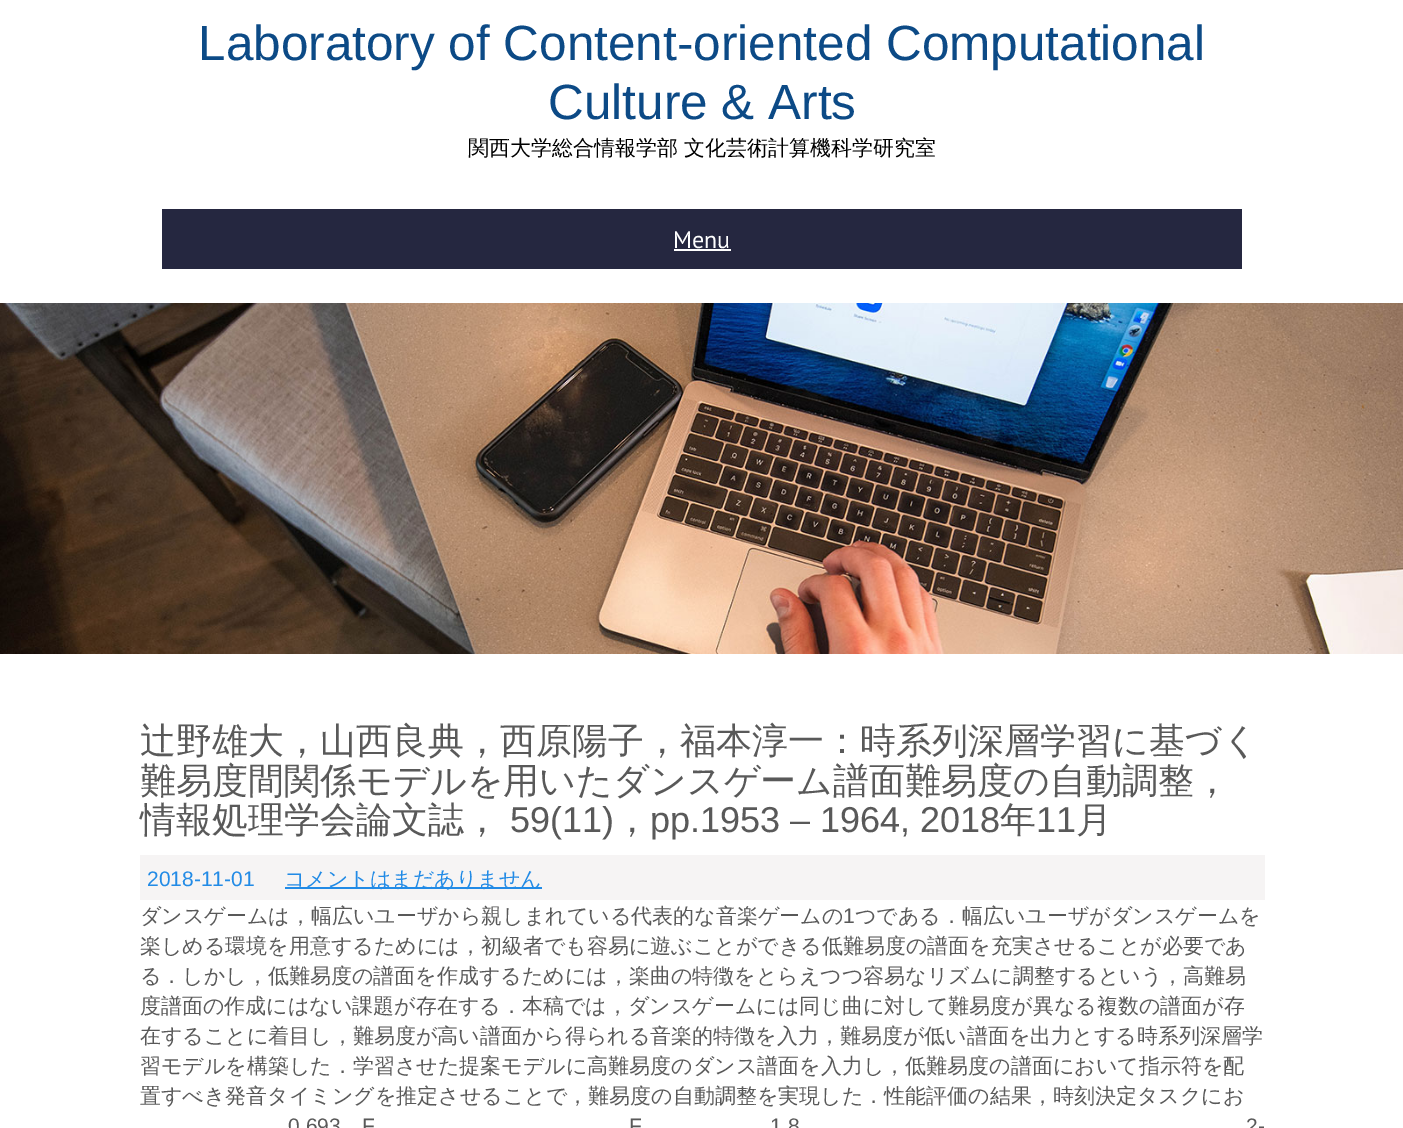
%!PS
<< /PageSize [1403 1128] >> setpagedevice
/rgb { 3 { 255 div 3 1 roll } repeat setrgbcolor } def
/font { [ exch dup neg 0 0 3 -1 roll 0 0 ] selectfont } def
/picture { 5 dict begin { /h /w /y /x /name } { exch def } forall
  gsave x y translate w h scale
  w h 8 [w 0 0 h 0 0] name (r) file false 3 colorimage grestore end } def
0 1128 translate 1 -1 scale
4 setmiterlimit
255 255 255 rgb
0 0 1403 1128 rectfill
37 39 64 rgb
162 209 1080 60 rectfill
255 255 255 rgb
674 249 57 2 rectfill
(img/1.rgb) 0 303 1403 351 picture
246 244 244 rgb
140 855 1125 45 rectfill
34 139 230 rgb
285 887 257 2 rectfill
/LiberationSans-Regular 49.5 font
12 74 134 rgb
198 60 moveto (Laboratory of Content-oriented Computational) show
548 119 moveto (Culture & Arts) show
/WenQuanYiZenHei-Medium 21 font
0 0 0 rgb
468 155 moveto (関西大学総合情報学部 文化芸術計算機科学研究室) show
/PTSans-Regular 24 font
255 255 255 rgb
673 248 moveto (Menu) show
/WenQuanYiZenHei-Medium 36 font
89 89 89 rgb
[
  [(辻野雄大，山西良典，西原陽子，福本淳一：時系列深層学習に基づく) 140 753]
  [(難易度間関係モデルを用いたダンスゲーム譜面難易度の自動調整，) 140 793]
  [(情報処理学会論文誌，) 140 832]
] { aload pop moveto show } forall
/LiberationSans-Regular 36 font
510 832 moveto (59\(11\)) show
/WenQuanYiZenHei-Medium 36 font
614 832 moveto (，) show
/LiberationSans-Regular 36 font
650 832 moveto (pp.1953 – 1964, 2018) show
/WenQuanYiZenHei-Medium 36 font
1000 832 moveto (年) show
/LiberationSans-Regular 36 font
1036 832 moveto (11) show
/WenQuanYiZenHei-Medium 36 font
1076 832 moveto (月) show
/LiberationSans-Regular 21 font
34 139 230 rgb
147 886 moveto (2018-11-01) show
/WenQuanYiZenHei-Medium 21 font
284 886 moveto (コメントはまだありません) show
89 89 89 rgb
140 923 moveto (ダンスゲームは，幅広いユーザから親しまれている代表的な音楽ゲームの) show
/LiberationSans-Regular 21 font
843 923 moveto (1) show
/WenQuanYiZenHei-Medium 21 font
[
  [(つである．幅広いユーザがダンスゲームを) 855 923]
  [(楽しめる環境を用意するためには，初級者でも容易に遊ぶことができる低難易度の譜面を充実させることが必要であ) 140 953]
  [(る．しかし，低難易度の譜面を作成するためには，楽曲の特徴をとらえつつ容易なリズムに調整するという，高難易) 140 983]
  [(度譜面の作成にはない課題が存在する．本稿では，ダンスゲームには同じ曲に対して難易度が異なる複数の譜面が存) 140 1013]
  [(在することに着目し，難易度が高い譜面から得られる音楽的特徴を入力，難易度が低い譜面を出力とする時系列深層学) 140 1043]
  [(習モデルを構築した．学習させた提案モデルに高難易度のダンス譜面を入力し，低難易度の譜面において指示符を配) 140 1073]
  [(置すべき発音タイミングを推定させることで，難易度の自動調整を実現した．性能評価の結果，時刻決定タスクにお) 140 1103]
] { aload pop moveto show } forall
/LiberationSans-Regular 21 font
[
  [(0.693) 288 1133]
  [(F) 362 1133]
  [(F) 629 1133]
  [(1.8) 770 1133]
  [(2-) 1246 1133]
] { aload pop moveto show } forall
showpage
